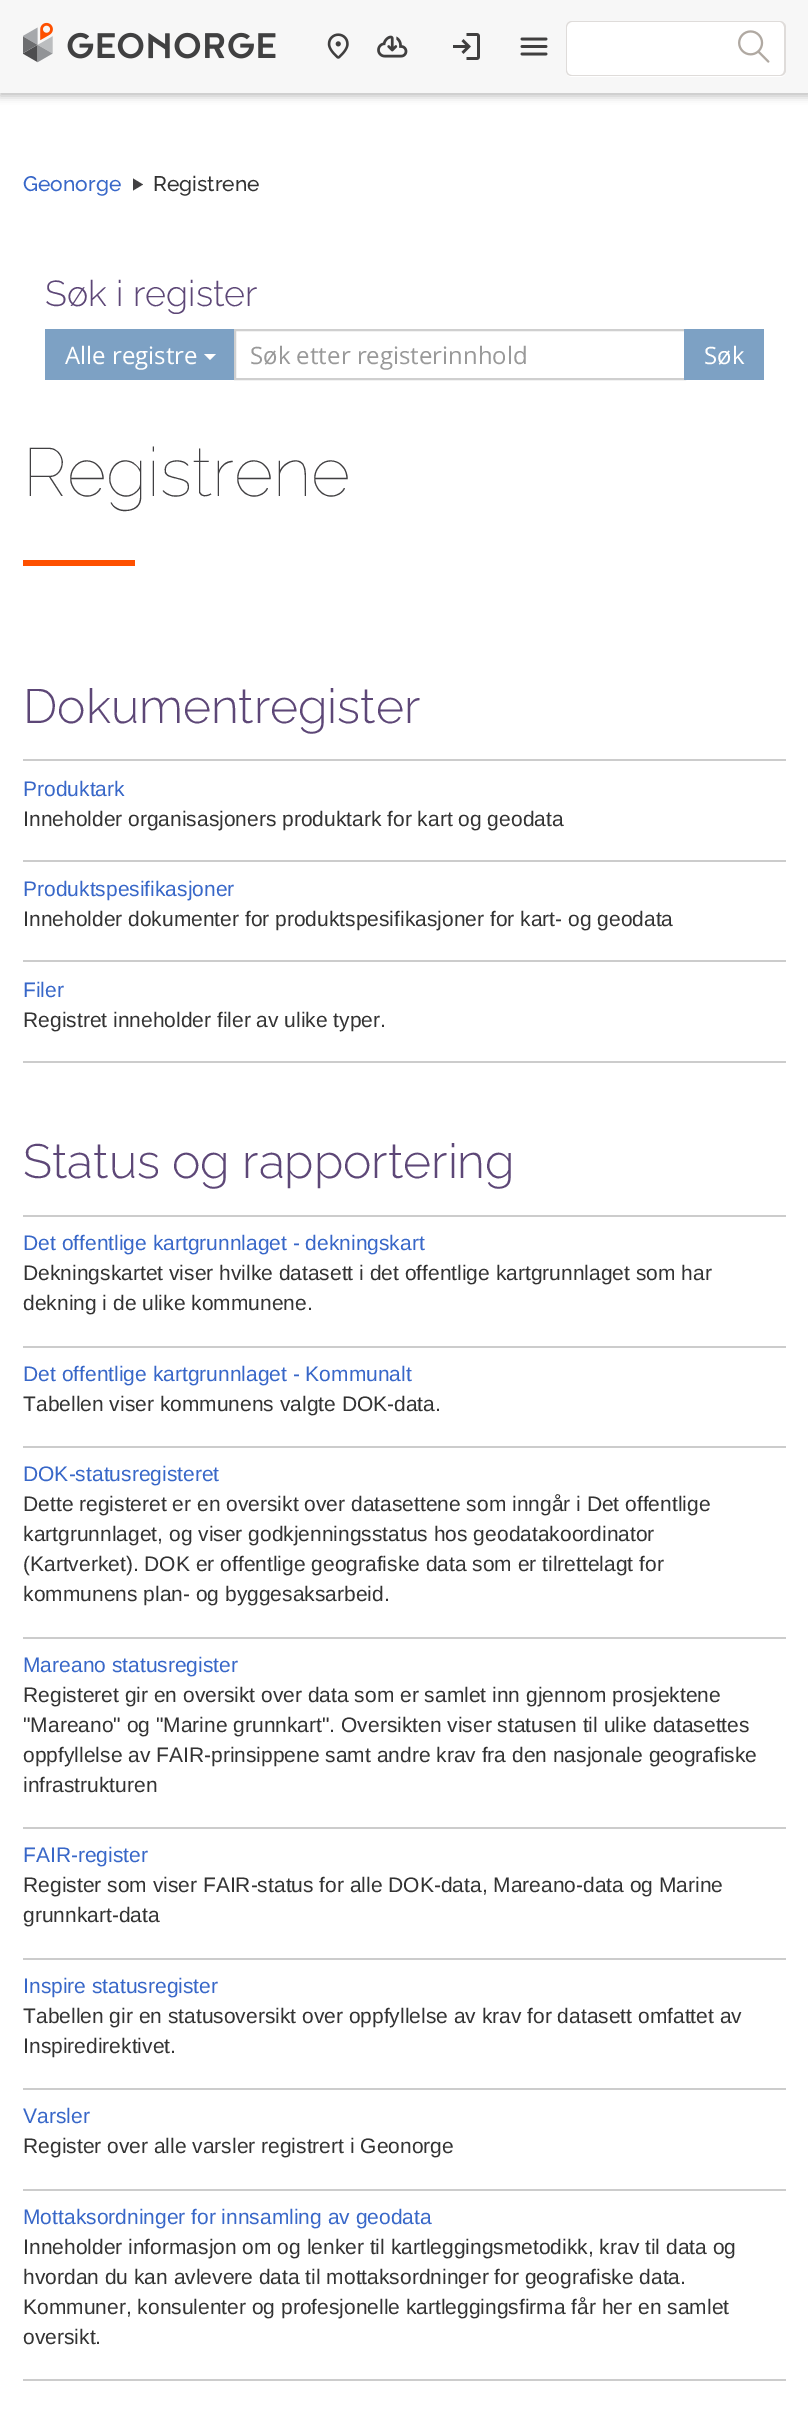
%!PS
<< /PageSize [808 2429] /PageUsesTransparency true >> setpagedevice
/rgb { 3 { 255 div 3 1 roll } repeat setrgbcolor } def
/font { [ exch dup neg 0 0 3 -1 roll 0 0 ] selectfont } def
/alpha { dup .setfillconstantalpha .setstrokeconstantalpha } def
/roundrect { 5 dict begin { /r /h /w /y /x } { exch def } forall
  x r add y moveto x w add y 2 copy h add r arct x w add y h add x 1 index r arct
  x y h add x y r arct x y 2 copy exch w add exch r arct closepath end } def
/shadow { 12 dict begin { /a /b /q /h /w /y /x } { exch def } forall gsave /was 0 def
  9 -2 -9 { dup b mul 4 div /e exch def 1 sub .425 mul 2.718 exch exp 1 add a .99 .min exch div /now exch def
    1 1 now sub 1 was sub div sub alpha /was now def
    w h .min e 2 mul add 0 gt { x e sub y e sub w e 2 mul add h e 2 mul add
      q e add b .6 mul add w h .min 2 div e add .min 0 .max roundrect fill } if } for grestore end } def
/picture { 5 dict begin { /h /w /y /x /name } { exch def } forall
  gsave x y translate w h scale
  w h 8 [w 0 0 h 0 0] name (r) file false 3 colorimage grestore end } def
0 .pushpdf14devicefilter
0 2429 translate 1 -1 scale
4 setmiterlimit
255 255 255 rgb
0 0 808 2429 rectfill
0 0 0 rgb
0 3 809 93 0 4 0.26 shadow
247 247 247 rgb
0 0 808 93 rectfill
(img/1.rgb) 23 22 253 41 picture
(img/2.rgb) 327 33 22 26 picture
(img/3.rgb) 377 35 31 23 picture
(img/4.rgb) 453 33 27 27 picture
(img/5.rgb) 520 37 28 19 picture
255 255 255 rgb
572 21 moveto 723 21 lineto 723 77 lineto 572 77 lineto 568.5 77 566 74.5 566 71 curveto 566 27 lineto 566 23.5 568.5 21 572 21 curveto closepath fill
223 220 218 rgb
572 21 moveto 723 21 lineto 723 76 lineto 572 76 lineto 568 76 566 74 566 70 curveto 566 27 lineto 566 24 568 21 572 21 curveto closepath 572 22 moveto 723 22 lineto 723 75 lineto 572 75 lineto 569 75 567 73 567 70 curveto 567 27 lineto 567 25 569 22 572 22 curveto closepath eofill
255 255 255 rgb
723 21 moveto 780 21 lineto 783.5 21 786 23.5 786 27 curveto 786 71 lineto 786 74.5 783.5 77 780 77 curveto 723 77 lineto closepath fill
223 220 218 rgb
723 21 moveto 780 21 lineto 783 21 786 24 786 27 curveto 786 70 lineto 786 74 783 76 780 76 curveto 723 76 lineto closepath 723 22 moveto 780 22 lineto 782 22 784 25 784 27 curveto 784 70 lineto 784 73 782 75 780 75 curveto 723 75 lineto closepath eofill
(img/6.rgb) 738 30 32 33 picture
65 64 66 rgb
143 184.5 moveto 133 190.5 lineto 133 178.5 lineto closepath fill
125 161 196 rgb
45 329 189 51 rectfill
255 255 255 rgb
204 354 moveto 216 354 lineto 210 360 lineto closepath fill
207 207 207 rgb
2 setlinewidth
235 330 450 49 rectstroke
[
  [684 329 80 51 125 161 196]
  [23 560 112 6 254 80 0]
  [23 759 763 2 204 204 204]
  [23 860 763 2 204 204 204]
  [23 960 763 2 204 204 204]
  [23 1061 763 2 204 204 204]
  [23 1215 763 2 204 204 204]
  [23 1346 763 2 204 204 204]
  [23 1446 763 2 204 204 204]
  [23 1637 763 2 204 204 204]
  [23 1827 763 2 204 204 204]
  [23 1958 763 2 204 204 204]
  [23 2088 763 2 204 204 204]
  [23 2189 763 2 204 204 204]
  [23 2379 763 2 204 204 204]
] { aload pop rgb rectfill } forall
/Raleway-Medium 21 font
56 103 200 rgb
23 191 moveto (Geonorge) show
51 51 51 rgb
153 191 moveto (Registrene) show
/Raleway-Light 36 font
93 71 119 rgb
45 306 moveto (Søk i register) show
/OpenSans-Regular 24 font
255 255 255 rgb
65 364 moveto (Alle registre) show
153 153 153 rgb
250 364 moveto (Søk etter registerinnhold) show
255 255 255 rgb
704 364 moveto (Søk) show
/Raleway-Thin 68 font
65 64 66 rgb
23 496 moveto (Registrene) show
/Raleway-Light 48 font
93 71 119 rgb
23 723 moveto (Dokumentregister) show
/LiberationSans-Regular 21 font
56 103 200 rgb
23 796 moveto (Produktark) show
51 51 51 rgb
23 826 moveto (Inneholder organisasjoners produktark for kart og geodata) show
56 103 200 rgb
23 896 moveto (Produktspesifikasjoner) show
51 51 51 rgb
23 926 moveto (Inneholder dokumenter for produktspesifikasjoner for kart- og geodata) show
56 103 200 rgb
23 997 moveto (Filer) show
51 51 51 rgb
23 1027 moveto (Registret inneholder filer av ulike typer.) show
/Raleway-Light 48 font
93 71 119 rgb
23 1178 moveto (Status og rapportering) show
/LiberationSans-Regular 21 font
56 103 200 rgb
23 1250 moveto (Det offentlige kartgrunnlaget - dekningskart) show
51 51 51 rgb
23 1280 moveto (Dekningskartet viser hvilke datasett i det offentlige kartgrunnlaget som har) show
23 1310 moveto (dekning i de ulike kommunene.) show
56 103 200 rgb
23 1381 moveto (Det offentlige kartgrunnlaget - Kommunalt) show
51 51 51 rgb
23 1411 moveto (Tabellen viser kommunens valgte DOK-data.) show
56 103 200 rgb
23 1481 moveto (DOK-statusregisteret) show
51 51 51 rgb
[
  [(Dette registeret er en oversikt over datasettene som inngår i Det offentlige) 23 1511]
  [(kartgrunnlaget, og viser godkjenningsstatus hos geodatakoordinator) 23 1541]
  [(\(Kartverket\). DOK er offentlige geografiske data som er tilrettelagt for) 23 1571]
  [(kommunens plan- og byggesaksarbeid.) 23 1601]
] { aload pop moveto show } forall
56 103 200 rgb
23 1672 moveto (Mareano statusregister) show
51 51 51 rgb
[
  [(Registeret gir en oversikt over data som er samlet inn gjennom prosjektene) 23 1702]
  [("Mareano" og "Marine grunnkart". Oversikten viser statusen til ulike datasettes) 23 1732]
  [(oppfyllelse av FAIR-prinsippene samt andre krav fra den nasjonale geografiske) 23 1762]
  [(infrastrukturen) 23 1792]
] { aload pop moveto show } forall
56 103 200 rgb
23 1862 moveto (FAIR-register) show
51 51 51 rgb
23 1892 moveto (Register som viser FAIR-status for alle DOK-data, Mareano-data og Marine) show
23 1922 moveto (grunnkart-data) show
56 103 200 rgb
23 1993 moveto (Inspire statusregister) show
51 51 51 rgb
23 2023 moveto (Tabellen gir en statusoversikt over oppfyllelse av krav for datasett omfattet av) show
23 2053 moveto (Inspiredirektivet.) show
56 103 200 rgb
23 2123 moveto (Varsler) show
51 51 51 rgb
23 2153 moveto (Register over alle varsler registrert i Geonorge) show
56 103 200 rgb
23 2224 moveto (Mottaksordninger for innsamling av geodata) show
51 51 51 rgb
[
  [(Inneholder informasjon om og lenker til kartleggingsmetodikk, krav til data og) 23 2254]
  [(hvordan du kan avlevere data til mottaksordninger for geografiske data.) 23 2284]
  [(Kommuner, konsulenter og profesjonelle kartleggingsfirma får her en samlet) 23 2314]
  [(oversikt.) 23 2344]
] { aload pop moveto show } forall
.poppdf14devicefilter showpage
